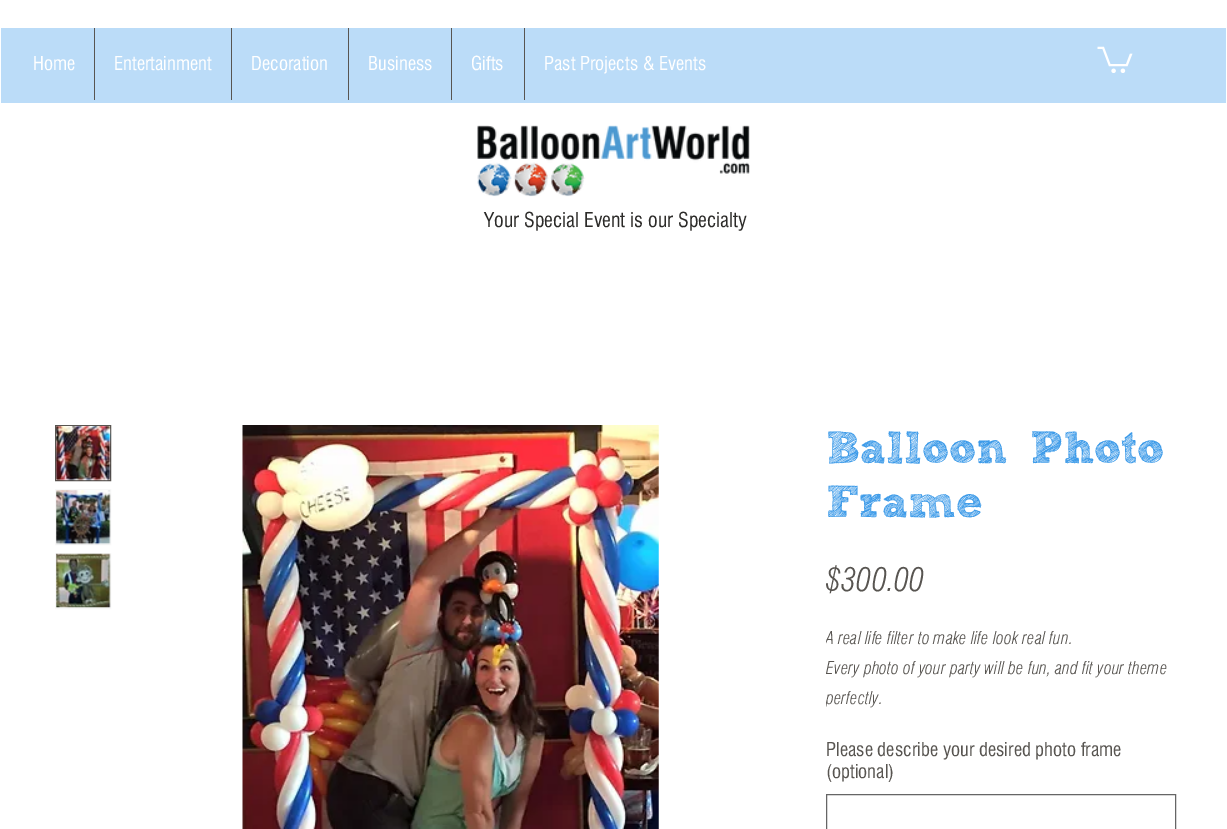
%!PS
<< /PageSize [1227 829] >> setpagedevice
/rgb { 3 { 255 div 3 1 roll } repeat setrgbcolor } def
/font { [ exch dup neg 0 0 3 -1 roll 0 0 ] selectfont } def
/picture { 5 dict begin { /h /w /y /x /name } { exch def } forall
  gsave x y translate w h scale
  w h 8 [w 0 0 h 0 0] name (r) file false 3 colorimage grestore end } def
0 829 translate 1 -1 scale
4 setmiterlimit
255 255 255 rgb
0 0 1227 829 rectfill
[
  [1 28 1225 75 187 220 248]
  [94 28 1 72 88 85 81]
  [231 28 1 72 88 85 81]
  [348 28 1 72 88 85 81]
  [451 28 1 72 88 85 81]
  [524 28 1 72 88 85 81]
] { aload pop rgb rectfill } forall
(img/1.rgb) 1097 46 36 27 picture
(img/2.rgb) 477 125 273 72 picture
55.5 425.5 55 55 rectstroke
(img/3.rgb) 56 426 55 55 picture
248 248 248 rgb
55.5 489.5 55 55 rectstroke
(img/4.rgb) 56 490 55 55 picture
55.5 553.5 55 55 rectstroke
(img/5.rgb) 56 553 55 55 picture
(img/6.rgb) 242 425 417 404 picture
102 102 102 rgb
826.5 794.5 349 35 rectstroke
/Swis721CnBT-Regular 18.75 font
255 255 255 rgb
[
  [(Home) 33 70]
  [(Entertainment) 114 70]
  [(Decoration) 251 70]
  [(Business) 368 70]
  [(Gifts) 471 70]
  [(Past Projects & Events) 544 70]
] { aload pop moveto show } forall
/Swis721CnBT-Regular 20 font
44 43 41 rgb
484 227 moveto (Your Special Event is our Specialty) show
/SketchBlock-Bold 45 font
61 155 233 rgb
826 463 moveto (Balloon Photo) show
826 517 moveto (Frame) show
/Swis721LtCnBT-LightItalic 32.5 font
88 85 81 rgb
826 591 moveto ($300.00) show
gsave
826 624 350 90 rectclip
/Swis721LtCnBT-LightItalic 17.5 font
826 644 moveto (A real life filter to make life look real fun.) show
grestore
/Swis721LtCnBT-LightItalic 17.5 font
826 674 moveto (Every photo of your party will be fun, and fit your theme) show
gsave
826 624 350 90 rectclip
826 704 moveto (perfectly.) show
grestore
/Swis721CnBT-Regular 18.75 font
826 756 moveto (Please describe your desired photo frame) show
826 778 moveto (\(optional\)) show
showpage
